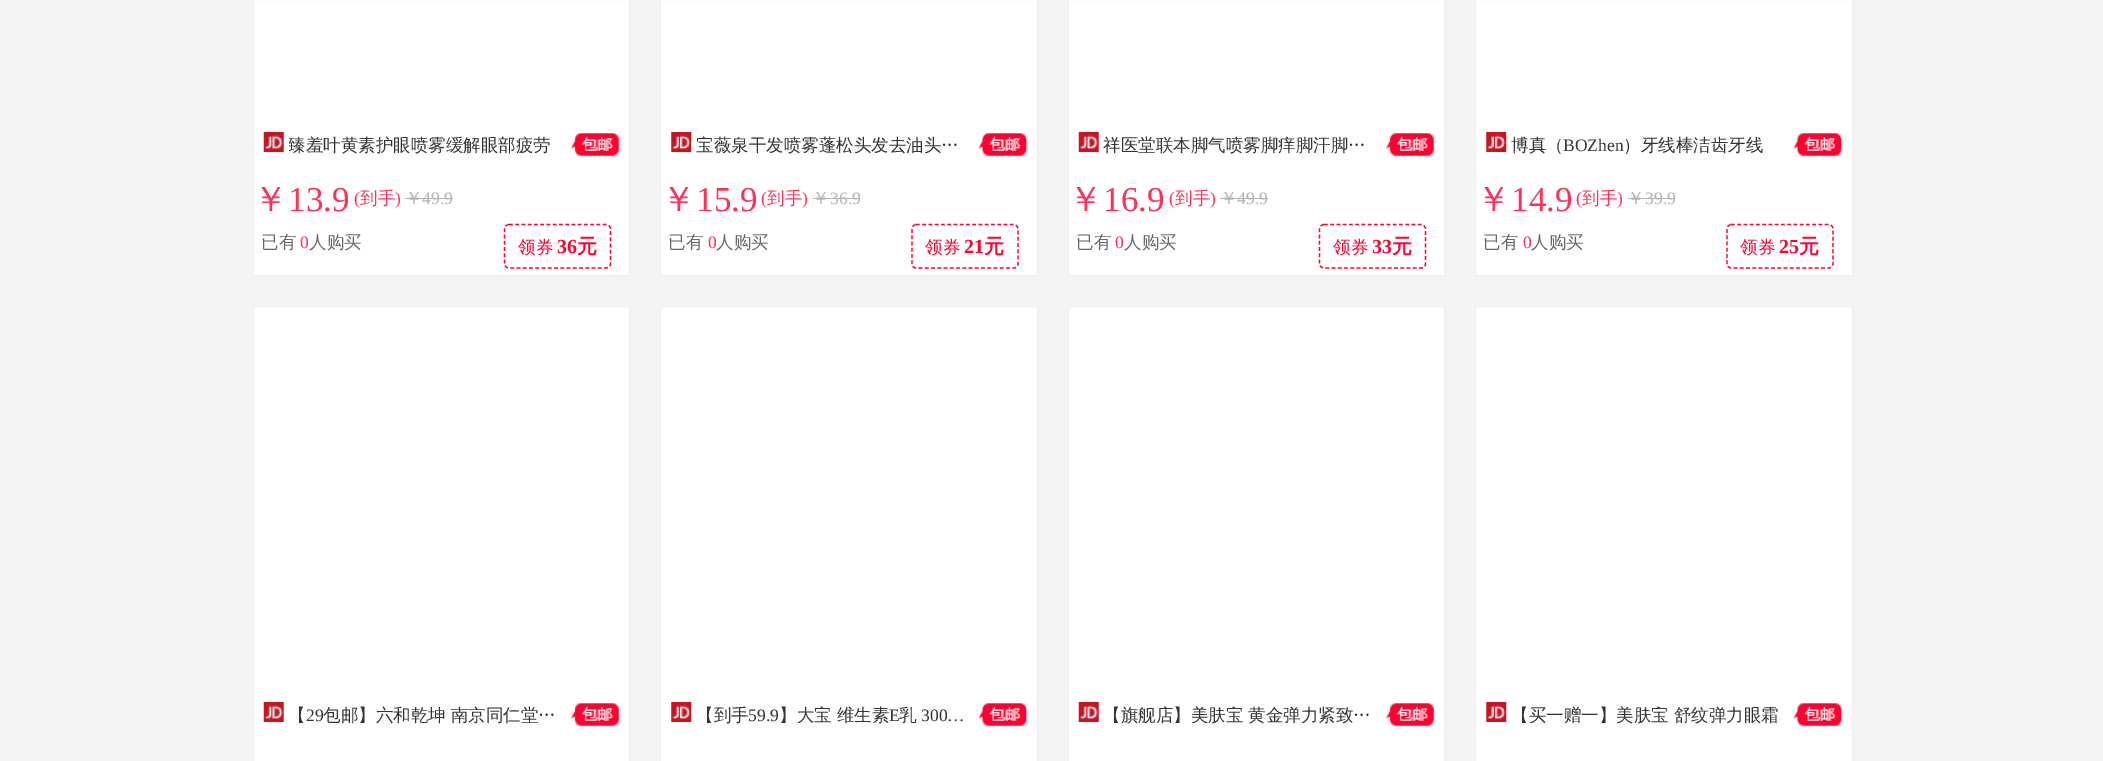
%!PS
<< /PageSize [2103 761] >> setpagedevice
/rgb { 3 { 255 div 3 1 roll } repeat setrgbcolor } def
/font { [ exch dup neg 0 0 3 -1 roll 0 0 ] selectfont } def
/picture { 5 dict begin { /h /w /y /x /name } { exch def } forall
  gsave x y translate w h scale
  w h 8 [w 0 0 h 0 0] name (r) file false 3 colorimage grestore end } def
0 761 translate 1 -1 scale
4 setmiterlimit
244 244 244 rgb
0 0 2103 761 rectfill
255 255 255 rgb
253.5 -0.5 moveto 629.5 -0.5 lineto 629.5 275.5 lineto 253.5 275.5 lineto closepath gsave fill grestore
240 240 240 rgb
stroke
(img/1.rgb) 263 132 21 20 picture
(img/2.rgb) 571 133 48 23 picture
180 180 180 rgb
405 198 48 1 rectfill
255 0 48 rgb
1.2 setlinewidth
[3.75 2.5] 0 setdash
509 224.5 moveto 606 224.5 lineto 608.5 224.5 610.5 226.5 610.5 229 curveto 610.5 264 lineto 610.5 266 608.5 268 606 268 curveto 509 268 lineto 506.5 268 504.5 266 504.5 264 curveto 504.5 229 lineto 504.5 226.5 506.5 224.5 509 224.5 curveto closepath stroke
255 255 255 rgb
660.5 -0.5 moveto 1037.5 -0.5 lineto 1037.5 275.5 lineto 660.5 275.5 lineto closepath gsave fill grestore
240 240 240 rgb
1 setlinewidth
[] 0 setdash
stroke
(img/3.rgb) 671 132 21 20 picture
(img/4.rgb) 978 133 49 23 picture
180 180 180 rgb
813 198 47 1 rectfill
255 0 48 rgb
1.2 setlinewidth
[3.75 2.5] 0 setdash
916 224.5 moveto 1014 224.5 lineto 1016 224.5 1018 226.5 1018 229 curveto 1018 264 lineto 1018 266 1016 268 1014 268 curveto 916 268 lineto 914 268 912 266 912 264 curveto 912 229 lineto 912 226.5 914 224.5 916 224.5 curveto closepath stroke
255 255 255 rgb
1068.5 -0.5 moveto 1444.5 -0.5 lineto 1444.5 275.5 lineto 1068.5 275.5 lineto closepath gsave fill grestore
240 240 240 rgb
1 setlinewidth
[] 0 setdash
stroke
(img/5.rgb) 1078 132 21 20 picture
(img/2.rgb) 1386 133 48 23 picture
180 180 180 rgb
1220 198 48 1 rectfill
255 0 48 rgb
1.2 setlinewidth
[3.75 2.5] 0 setdash
1324 224.5 moveto 1421 224.5 lineto 1423.5 224.5 1425.5 226.5 1425.5 229 curveto 1425.5 264 lineto 1425.5 266 1423.5 268 1421 268 curveto 1324 268 lineto 1321.5 268 1319.5 266 1319.5 264 curveto 1319.5 229 lineto 1319.5 226.5 1321.5 224.5 1324 224.5 curveto closepath stroke
255 255 255 rgb
1475.5 -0.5 moveto 1852.5 -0.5 lineto 1852.5 275.5 lineto 1475.5 275.5 lineto closepath gsave fill grestore
240 240 240 rgb
1 setlinewidth
[] 0 setdash
stroke
(img/3.rgb) 1486 132 21 20 picture
(img/6.rgb) 1793 133 49 23 picture
180 180 180 rgb
1628 198 47 1 rectfill
255 0 48 rgb
1.2 setlinewidth
[3.75 2.5] 0 setdash
1731 224.5 moveto 1829 224.5 lineto 1831 224.5 1833 226.5 1833 229 curveto 1833 264 lineto 1833 266 1831 268 1829 268 curveto 1731 268 lineto 1729 268 1727 266 1727 264 curveto 1727 229 lineto 1727 226.5 1729 224.5 1731 224.5 curveto closepath stroke
255 255 255 rgb
253.5 306.5 moveto 629.5 306.5 lineto 629.5 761.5 lineto 253.5 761.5 lineto closepath gsave fill grestore
240 240 240 rgb
1 setlinewidth
[] 0 setdash
stroke
(img/1.rgb) 263 702 21 20 picture
(img/2.rgb) 571 703 48 23 picture
255 255 255 rgb
660.5 306.5 moveto 1037.5 306.5 lineto 1037.5 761.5 lineto 660.5 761.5 lineto closepath gsave fill grestore
240 240 240 rgb
stroke
(img/3.rgb) 671 702 21 20 picture
(img/4.rgb) 978 703 49 23 picture
255 255 255 rgb
1068.5 306.5 moveto 1444.5 306.5 lineto 1444.5 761.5 lineto 1068.5 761.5 lineto closepath gsave fill grestore
240 240 240 rgb
stroke
(img/5.rgb) 1078 702 21 20 picture
(img/2.rgb) 1386 703 48 23 picture
255 255 255 rgb
1475.5 306.5 moveto 1852.5 306.5 lineto 1852.5 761.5 lineto 1475.5 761.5 lineto closepath gsave fill grestore
240 240 240 rgb
stroke
(img/3.rgb) 1486 702 21 20 picture
(img/6.rgb) 1793 703 49 23 picture
gsave
289 125 275 31 rectclip
/WenQuanYiZenHei-Medium 17.5 font
51 51 51 rgb
288 151 moveto (臻羞叶黄素护眼喷雾缓解眼部疲劳) show
grestore
/WenQuanYiZenHei-Medium 35 font
253 50 88 rgb
253 211 moveto (￥) show
/LiberationSerif-Regular 35 font
288 211 moveto (13.9) show
/LiberationSerif-Regular 17.5 font
354 204 moveto (\() show
/WenQuanYiZenHei-Medium 17.5 font
360 204 moveto (到手) show
/LiberationSerif-Regular 17.5 font
395 204 moveto (\)) show
/WenQuanYiZenHei-Medium 17.5 font
180 180 180 rgb
405 204 moveto (￥) show
/LiberationSerif-Regular 17.5 font
422 204 moveto (49.9) show
/WenQuanYiZenHei-Medium 17.5 font
102 102 102 rgb
261 248 moveto (已有) show
/LiberationSerif-Regular 17.5 font
253 50 88 rgb
300 248 moveto (0) show
/WenQuanYiZenHei-Medium 17.5 font
102 102 102 rgb
309 248 moveto (人购买) show
255 0 48 rgb
518 253 moveto (领券) show
/LiberationSerif-Bold 20 font
557 253 moveto (36) show
/WenQuanYiZenHei-Bold 20 font
577 253 moveto (元) show
/WenQuanYiZenHei-Medium 17.5 font
51 51 51 rgb
696 151 moveto (宝薇泉干发喷雾蓬松头发去油头…) show
/WenQuanYiZenHei-Medium 35 font
253 50 88 rgb
661 211 moveto (￥) show
/LiberationSerif-Regular 35 font
696 211 moveto (15.9) show
/LiberationSerif-Regular 17.5 font
761 204 moveto (\() show
/WenQuanYiZenHei-Medium 17.5 font
767 204 moveto (到手) show
/LiberationSerif-Regular 17.5 font
802 204 moveto (\)) show
/WenQuanYiZenHei-Medium 17.5 font
180 180 180 rgb
812 204 moveto (￥) show
/LiberationSerif-Regular 17.5 font
830 204 moveto (36.9) show
/WenQuanYiZenHei-Medium 17.5 font
102 102 102 rgb
668 248 moveto (已有) show
/LiberationSerif-Regular 17.5 font
253 50 88 rgb
708 248 moveto (0) show
/WenQuanYiZenHei-Medium 17.5 font
102 102 102 rgb
716 248 moveto (人购买) show
255 0 48 rgb
925 253 moveto (领券) show
/LiberationSerif-Bold 20 font
964 253 moveto (21) show
/WenQuanYiZenHei-Bold 20 font
984 253 moveto (元) show
/WenQuanYiZenHei-Medium 17.5 font
51 51 51 rgb
1103 151 moveto (祥医堂联本脚气喷雾脚痒脚汗脚…) show
/WenQuanYiZenHei-Medium 35 font
253 50 88 rgb
1068 211 moveto (￥) show
/LiberationSerif-Regular 35 font
1103 211 moveto (16.9) show
/LiberationSerif-Regular 17.5 font
1169 204 moveto (\() show
/WenQuanYiZenHei-Medium 17.5 font
1175 204 moveto (到手) show
/LiberationSerif-Regular 17.5 font
1210 204 moveto (\)) show
/WenQuanYiZenHei-Medium 17.5 font
180 180 180 rgb
1220 204 moveto (￥) show
/LiberationSerif-Regular 17.5 font
1237 204 moveto (49.9) show
/WenQuanYiZenHei-Medium 17.5 font
102 102 102 rgb
1076 248 moveto (已有) show
/LiberationSerif-Regular 17.5 font
253 50 88 rgb
1115 248 moveto (0) show
/WenQuanYiZenHei-Medium 17.5 font
102 102 102 rgb
1124 248 moveto (人购买) show
255 0 48 rgb
1333 253 moveto (领券) show
/LiberationSerif-Bold 20 font
1372 253 moveto (33) show
/WenQuanYiZenHei-Bold 20 font
1392 253 moveto (元) show
/WenQuanYiZenHei-Medium 17.5 font
51 51 51 rgb
1511 151 moveto (博真（) show
/LiberationSerif-Regular 17.5 font
1563 151 moveto (BOZhen) show
/WenQuanYiZenHei-Medium 17.5 font
1623 151 moveto (）牙线棒洁齿牙线) show
/WenQuanYiZenHei-Medium 35 font
253 50 88 rgb
1476 211 moveto (￥) show
/LiberationSerif-Regular 35 font
1511 211 moveto (14.9) show
/LiberationSerif-Regular 17.5 font
1576 204 moveto (\() show
/WenQuanYiZenHei-Medium 17.5 font
1582 204 moveto (到手) show
/LiberationSerif-Regular 17.5 font
1617 204 moveto (\)) show
/WenQuanYiZenHei-Medium 17.5 font
180 180 180 rgb
1627 204 moveto (￥) show
/LiberationSerif-Regular 17.5 font
1645 204 moveto (39.9) show
/WenQuanYiZenHei-Medium 17.5 font
102 102 102 rgb
1483 248 moveto (已有) show
/LiberationSerif-Regular 17.5 font
253 50 88 rgb
1523 248 moveto (0) show
/WenQuanYiZenHei-Medium 17.5 font
102 102 102 rgb
1531 248 moveto (人购买) show
255 0 48 rgb
1740 253 moveto (领券) show
/LiberationSerif-Bold 20 font
1779 253 moveto (25) show
/WenQuanYiZenHei-Bold 20 font
1799 253 moveto (元) show
/WenQuanYiZenHei-Medium 17.5 font
51 51 51 rgb
288 721 moveto (【) show
/LiberationSerif-Regular 17.5 font
306 721 moveto (29) show
/WenQuanYiZenHei-Medium 17.5 font
323 721 moveto (包邮】六和乾坤 南京同仁堂…) show
696 721 moveto (【到手) show
/LiberationSerif-Regular 17.5 font
748 721 moveto (59.9) show
/WenQuanYiZenHei-Medium 17.5 font
779 721 moveto (】大宝 维生素) show
/LiberationSerif-Regular 17.5 font
889 721 moveto (E) show
/WenQuanYiZenHei-Medium 17.5 font
899 721 moveto (乳) show
/LiberationSerif-Regular 17.5 font
921 721 moveto (300…) show
/WenQuanYiZenHei-Medium 17.5 font
1103 721 moveto (【旗舰店】美肤宝 黄金弹力紧致…) show
1511 721 moveto (【买一赠一】美肤宝 舒纹弹力眼霜) show
showpage
